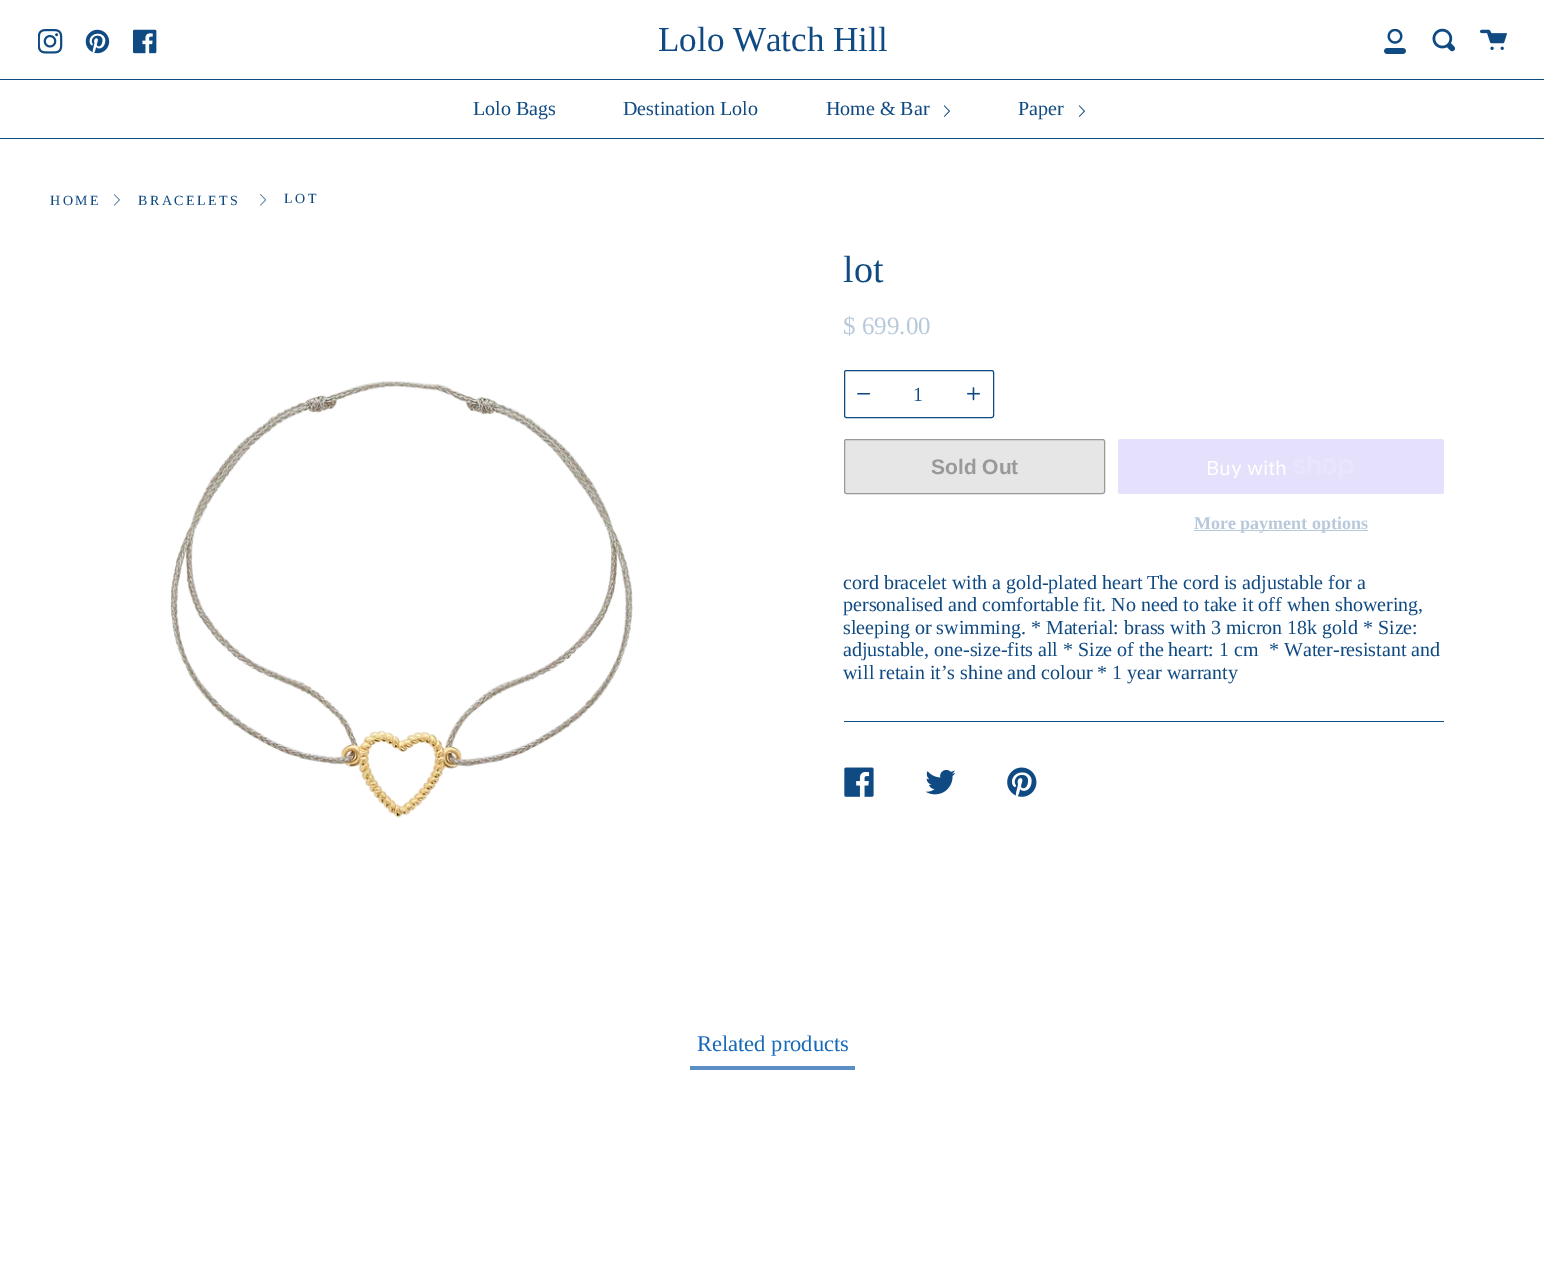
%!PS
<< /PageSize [1544 1266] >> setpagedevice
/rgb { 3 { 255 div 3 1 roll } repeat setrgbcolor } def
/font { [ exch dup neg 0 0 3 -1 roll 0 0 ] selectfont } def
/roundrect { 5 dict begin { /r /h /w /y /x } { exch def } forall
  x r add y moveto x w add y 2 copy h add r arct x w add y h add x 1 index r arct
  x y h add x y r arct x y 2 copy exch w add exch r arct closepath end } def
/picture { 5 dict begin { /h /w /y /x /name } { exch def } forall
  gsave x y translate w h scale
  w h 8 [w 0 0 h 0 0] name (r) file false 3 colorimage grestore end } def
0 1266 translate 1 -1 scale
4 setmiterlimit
255 255 255 rgb
0 0 1544 1266 rectfill
(img/1.rgb) 38 29 25 25 picture
(img/2.rgb) 85 29 25 25 picture
(img/3.rgb) 133 29 24 25 picture
(img/4.rgb) 1384 29 22 25 picture
(img/5.rgb) 1432 28 23 24 picture
(img/6.rgb) 1480 29 27 21 picture
16 74 131 rgb
0 79 1544 1 rectfill
0 138 1544 1 rectfill
(img/7.rgb) 944 105 6 12 picture
(img/7.rgb) 1079 105 6 12 picture
(img/8.rgb) 114 194 6 12 picture
(img/9.rgb) 260 194 6 12 picture
(img/10.rgb) 170 381 463 437 picture
844.5 370.5 149 47 2 roundrect stroke
(img/11.rgb) 857 393 14 2 picture
(img/12.rgb) 967 387 13 14 picture
230 230 230 rgb
844.5 439.5 260 54 2 roundrect gsave fill grestore
153 153 153 rgb
stroke
229 224 252 rgb
1118 439 326 55 2.5 roundrect fill
(img/13.rgb) 1294 455 60 24 picture
183 201 218 rgb
1194 530 174 1 rectfill
17 79 140 rgb
844 721 600 1 rectfill
(img/14.rgb) 844 767 30 30 picture
(img/15.rgb) 925 769 31 26 picture
(img/16.rgb) 1007 767 30 30 picture
91 143 196 rgb
690 1066 165 4 rectfill
/LiberationSerif-Regular 35 font
16 74 131 rgb
658 51 moveto (Lolo Watch Hill) show
/LiberationSerif-Regular 20 font
[
  [(Lolo Bags) 473 115]
  [(Destination Lolo) 623 115]
  [(Home & Bar) 826 115]
  [(Paper) 1018 115]
] { aload pop moveto show } forall
/LiberationSerif-Regular 14 font
50 205 moveto 2.5 0 (HOME) ashow
138 205 moveto 2.5 0 (BRACELETS) ashow
284 203 moveto 2.5 0 (LOT) ashow
/LiberationSerif-Regular 38 font
843 282 moveto (lot) show
/LiberationSerif-Regular 25 font
183 201 218 rgb
843 334 moveto ($ 699.00) show
/LiberationSerif-Regular 20 font
16 74 131 rgb
913 401 moveto (1) show
/LiberationSans-Bold 21 font
153 153 153 rgb
931 474 moveto (Sold Out) show
/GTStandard-Regular 20 font
255 255 255 rgb
1206 475 moveto (Buy with) show
/LiberationSerif-Bold 18 font
183 201 218 rgb
1194 529 moveto (More payment options) show
/LiberationSerif-Regular 20 font
16 74 131 rgb
[
  [(cord bracelet with a gold-plated heart The cord is adjustable for a) 843 589]
  [(personalised and comfortable fit. No need to take it off when showering,) 843 611]
  [(sleeping or swimming. * Material: brass with 3 micron 18k gold * Size:) 843 634]
  [(adjustable, one-size-fits all * Size of the heart: 1 cm) 843 656]
  [(* Water-resistant and) 1269 656]
  [(will retain it’s shine and colour * 1 year warranty) 843 679]
] { aload pop moveto show } forall
/LiberationSerif-Regular 22.5 font
23 105 185 rgb
697 1051 moveto (Related products) show
showpage
